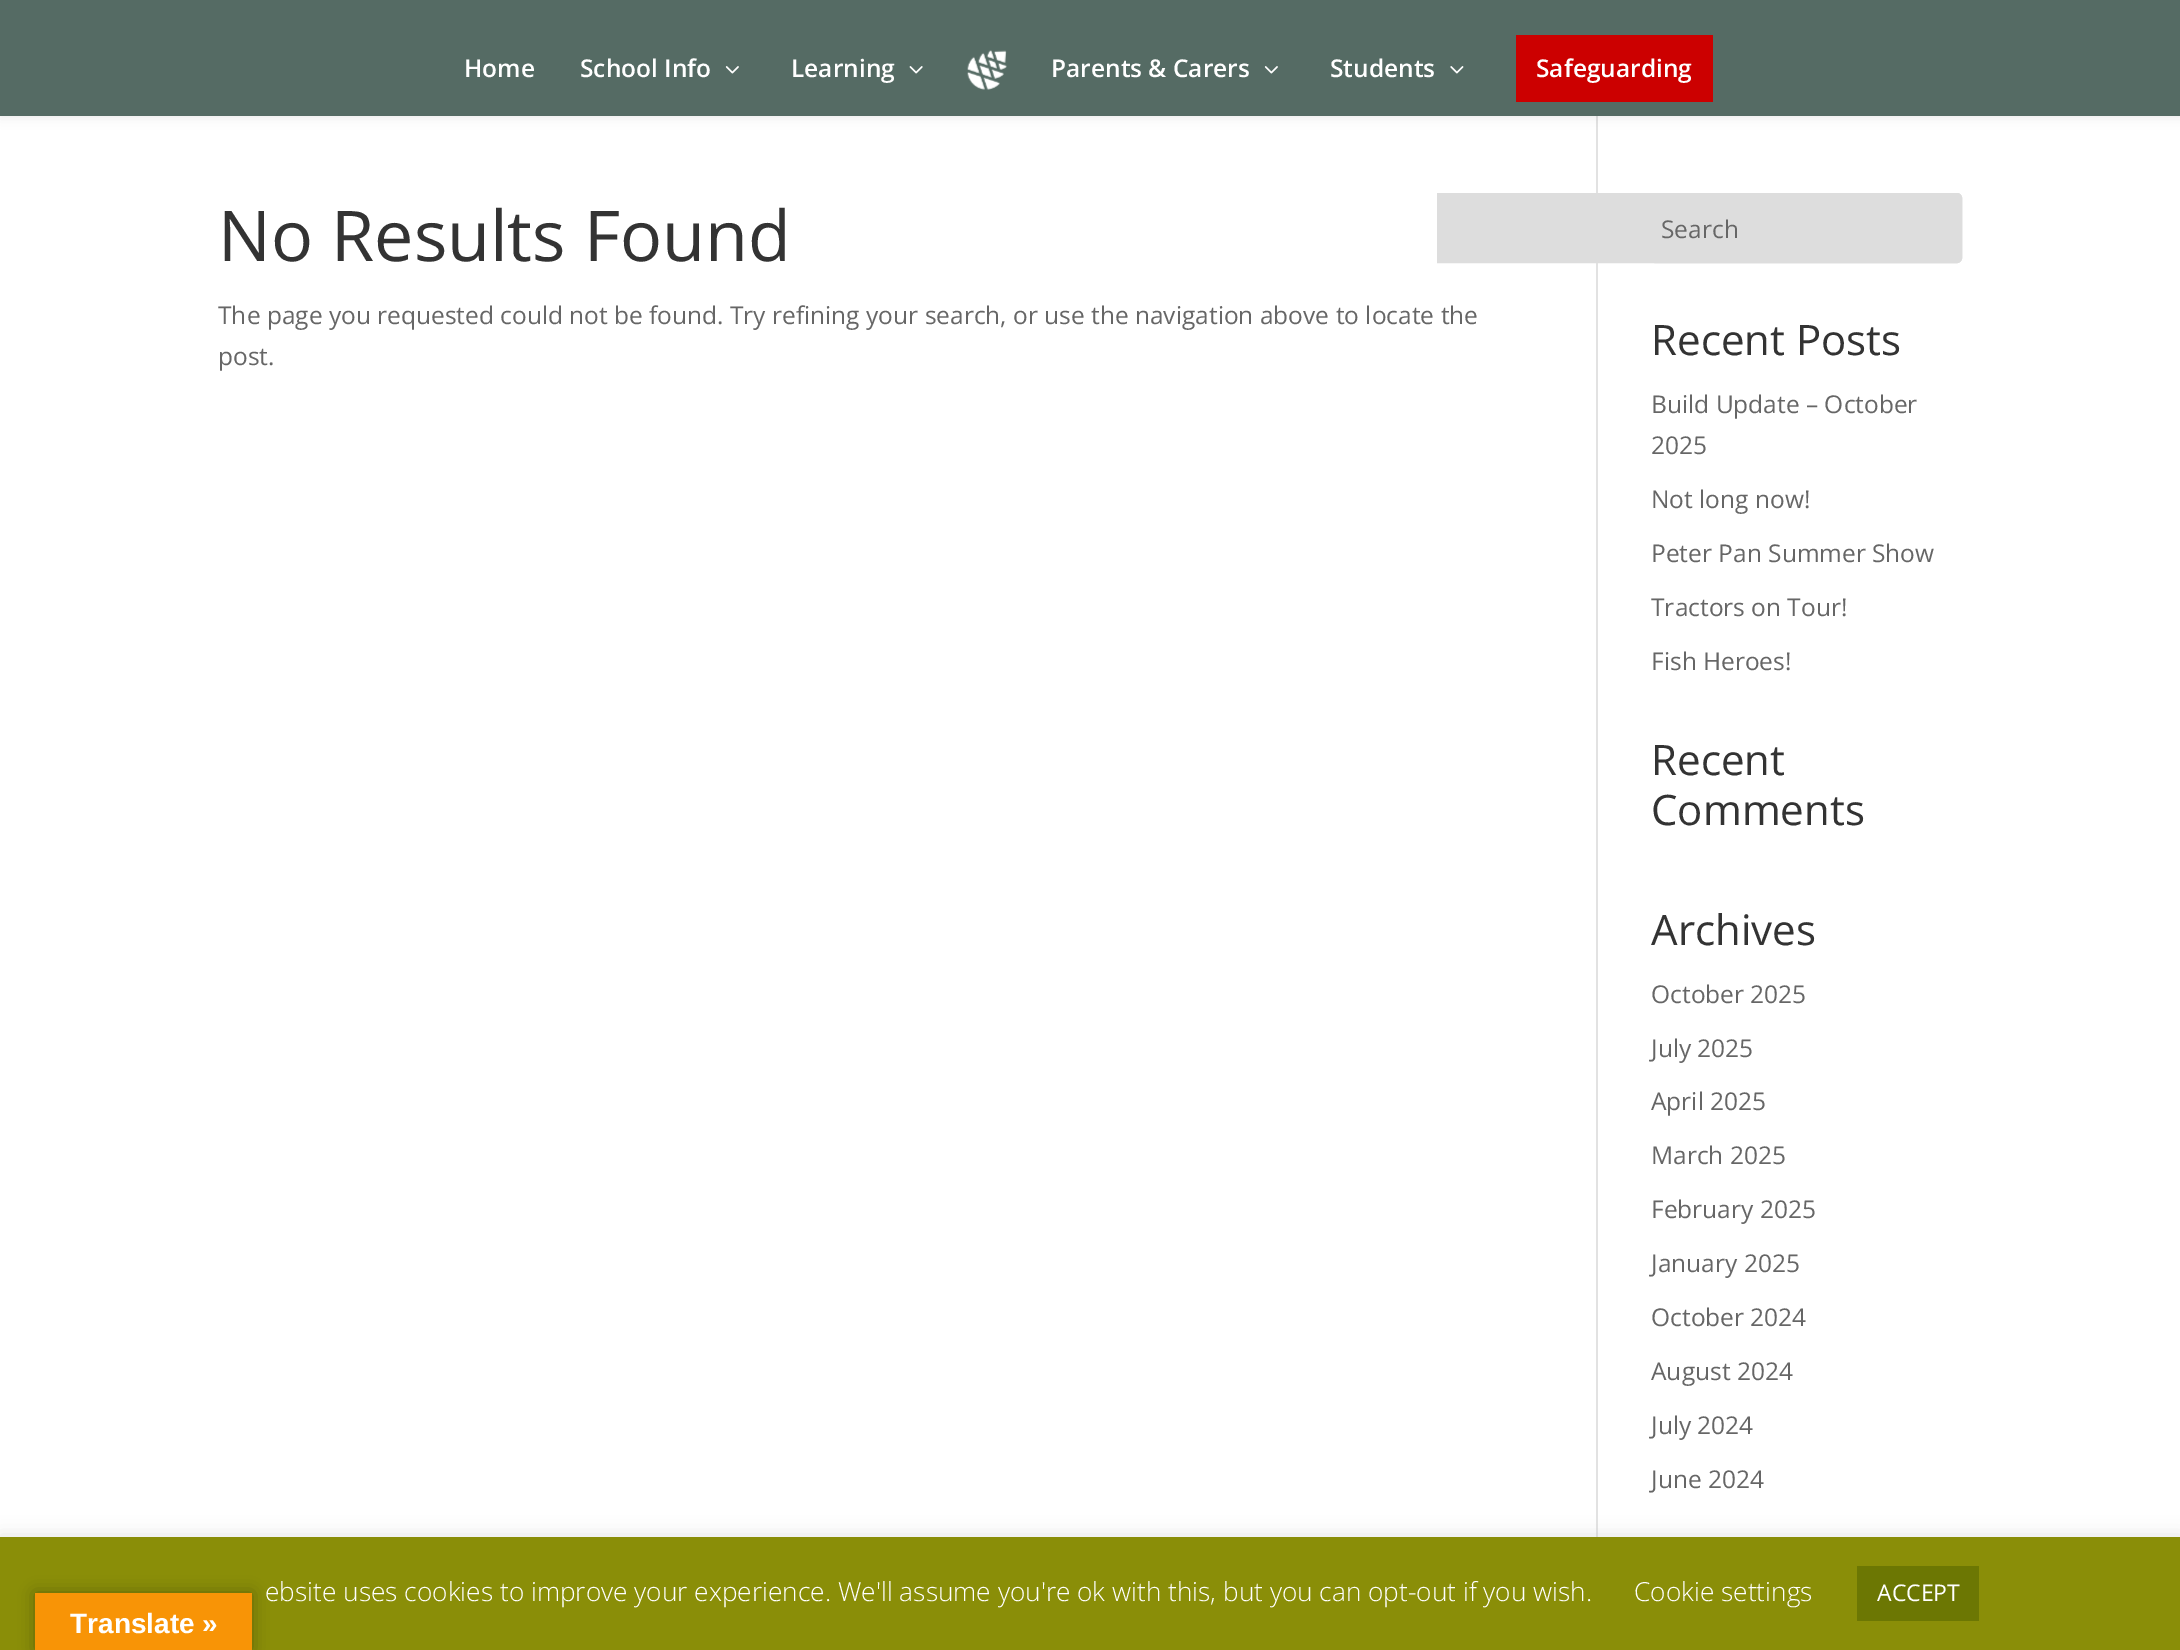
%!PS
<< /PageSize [2180 1650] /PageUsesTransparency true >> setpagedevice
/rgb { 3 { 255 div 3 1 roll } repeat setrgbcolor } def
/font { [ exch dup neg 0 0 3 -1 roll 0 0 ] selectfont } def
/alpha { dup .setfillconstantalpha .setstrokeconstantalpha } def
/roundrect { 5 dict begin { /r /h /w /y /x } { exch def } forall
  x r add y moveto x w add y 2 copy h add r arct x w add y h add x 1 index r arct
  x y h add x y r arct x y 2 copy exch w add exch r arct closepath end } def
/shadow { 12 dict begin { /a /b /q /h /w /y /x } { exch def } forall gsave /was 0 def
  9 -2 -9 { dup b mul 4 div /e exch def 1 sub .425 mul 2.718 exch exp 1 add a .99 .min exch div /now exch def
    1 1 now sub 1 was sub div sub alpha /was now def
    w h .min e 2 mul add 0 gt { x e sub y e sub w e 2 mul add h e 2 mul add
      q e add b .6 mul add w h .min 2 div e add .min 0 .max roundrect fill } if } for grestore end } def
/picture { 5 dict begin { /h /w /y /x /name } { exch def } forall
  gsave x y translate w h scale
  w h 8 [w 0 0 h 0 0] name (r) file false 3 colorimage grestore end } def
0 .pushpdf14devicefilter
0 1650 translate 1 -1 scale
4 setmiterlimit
255 255 255 rgb
0 0 2180 1650 rectfill
226 226 226 rgb
1596 116 2 1421 rectfill
0 0 0 rgb
0 0 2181 116 0 6 0.1 shadow
85 107 100 rgb
0 0 2180 116 rectfill
(img/1.rgb) 725 66 14 8 picture
(img/2.rgb) 909 66 14 8 picture
(img/3.rgb) 967 50 40 40 picture
(img/1.rgb) 1264 66 14 8 picture
(img/4.rgb) 1450 66 14 8 picture
204 0 0 rgb
1516 35 197 67 rectfill
221 221 221 rgb
2 setlinewidth
1651 194 310 68 4 roundrect stroke
1438 194 moveto 1957 194 lineto 1959 194 1961 196 1961 198 curveto 1961 258 lineto 1961 260 1959 262 1957 262 curveto 1438 262 lineto closepath gsave fill grestore
stroke
172 171 171 rgb
0 1535 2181 114 0 9 0.3 shadow
138 142 8 rgb
0 1537 2180 113 rectfill
108 119 3 rgb
1857 1566 122 55 rectfill
0 0 0 rgb
35 1593 217 57 0 8 0.3 shadow
248 148 6 rgb
35 1593 217 57 rectfill
/OpenSans-SemiBold 24.5 font
255 255 255 rgb
[
  [(Home) 464 77]
  [(School Info) 580 77]
  [(Learning) 791 77]
  [(Parents & Carers) 1051 77]
  [(Students) 1330 77]
  [(Safeguarding) 1536 77]
] { aload pop moveto show } forall
/OpenSans-Regular 70 font
51 51 51 rgb
218 261 moveto (No Results Found) show
/OpenSans-Regular 24.5 font
102 102 102 rgb
[
  [(The page you requested could not be found. Try refining your search, or use the navigation above to locate the) 218 324]
  [(post.) 218 365]
  [(Search) 1661 238]
] { aload pop moveto show } forall
/OpenSans-Regular 42 font
51 51 51 rgb
1651 355 moveto (Recent Posts) show
/OpenSans-Regular 24.5 font
102 102 102 rgb
[
  [(Build Update – October) 1651 413]
  [(2025) 1651 454]
  [(Not long now!) 1651 508]
  [(Peter Pan Summer Show) 1651 562]
  [(Tractors on Tour!) 1651 616]
  [(Fish Heroes!) 1651 670]
] { aload pop moveto show } forall
/OpenSans-Regular 42 font
51 51 51 rgb
[
  [(Recent) 1651 775]
  [(Comments) 1651 825]
  [(Archives) 1651 945]
] { aload pop moveto show } forall
/OpenSans-Regular 24.5 font
102 102 102 rgb
[
  [(October 2025) 1651 1003]
  [(July 2025) 1651 1057]
  [(April 2025) 1651 1110]
  [(March 2025) 1651 1164]
  [(February 2025) 1651 1218]
  [(January 2025) 1651 1272]
  [(October 2024) 1651 1326]
  [(August 2024) 1651 1380]
  [(July 2024) 1651 1434]
  [(June 2024) 1651 1488]
] { aload pop moveto show } forall
/OpenSans-Light 26.25 font
255 255 255 rgb
265 1601 moveto (ebsite uses cookies to improve your experience. We'll assume you're ok with this, but you can opt-out if you wish.) show
1634 1601 moveto (Cookie settings) show
/OpenSans-Regular 23 font
1877 1601 moveto (ACCEPT) show
/LiberationSans-Bold 28 font
70 1633 moveto (Translate ») show
.poppdf14devicefilter showpage
